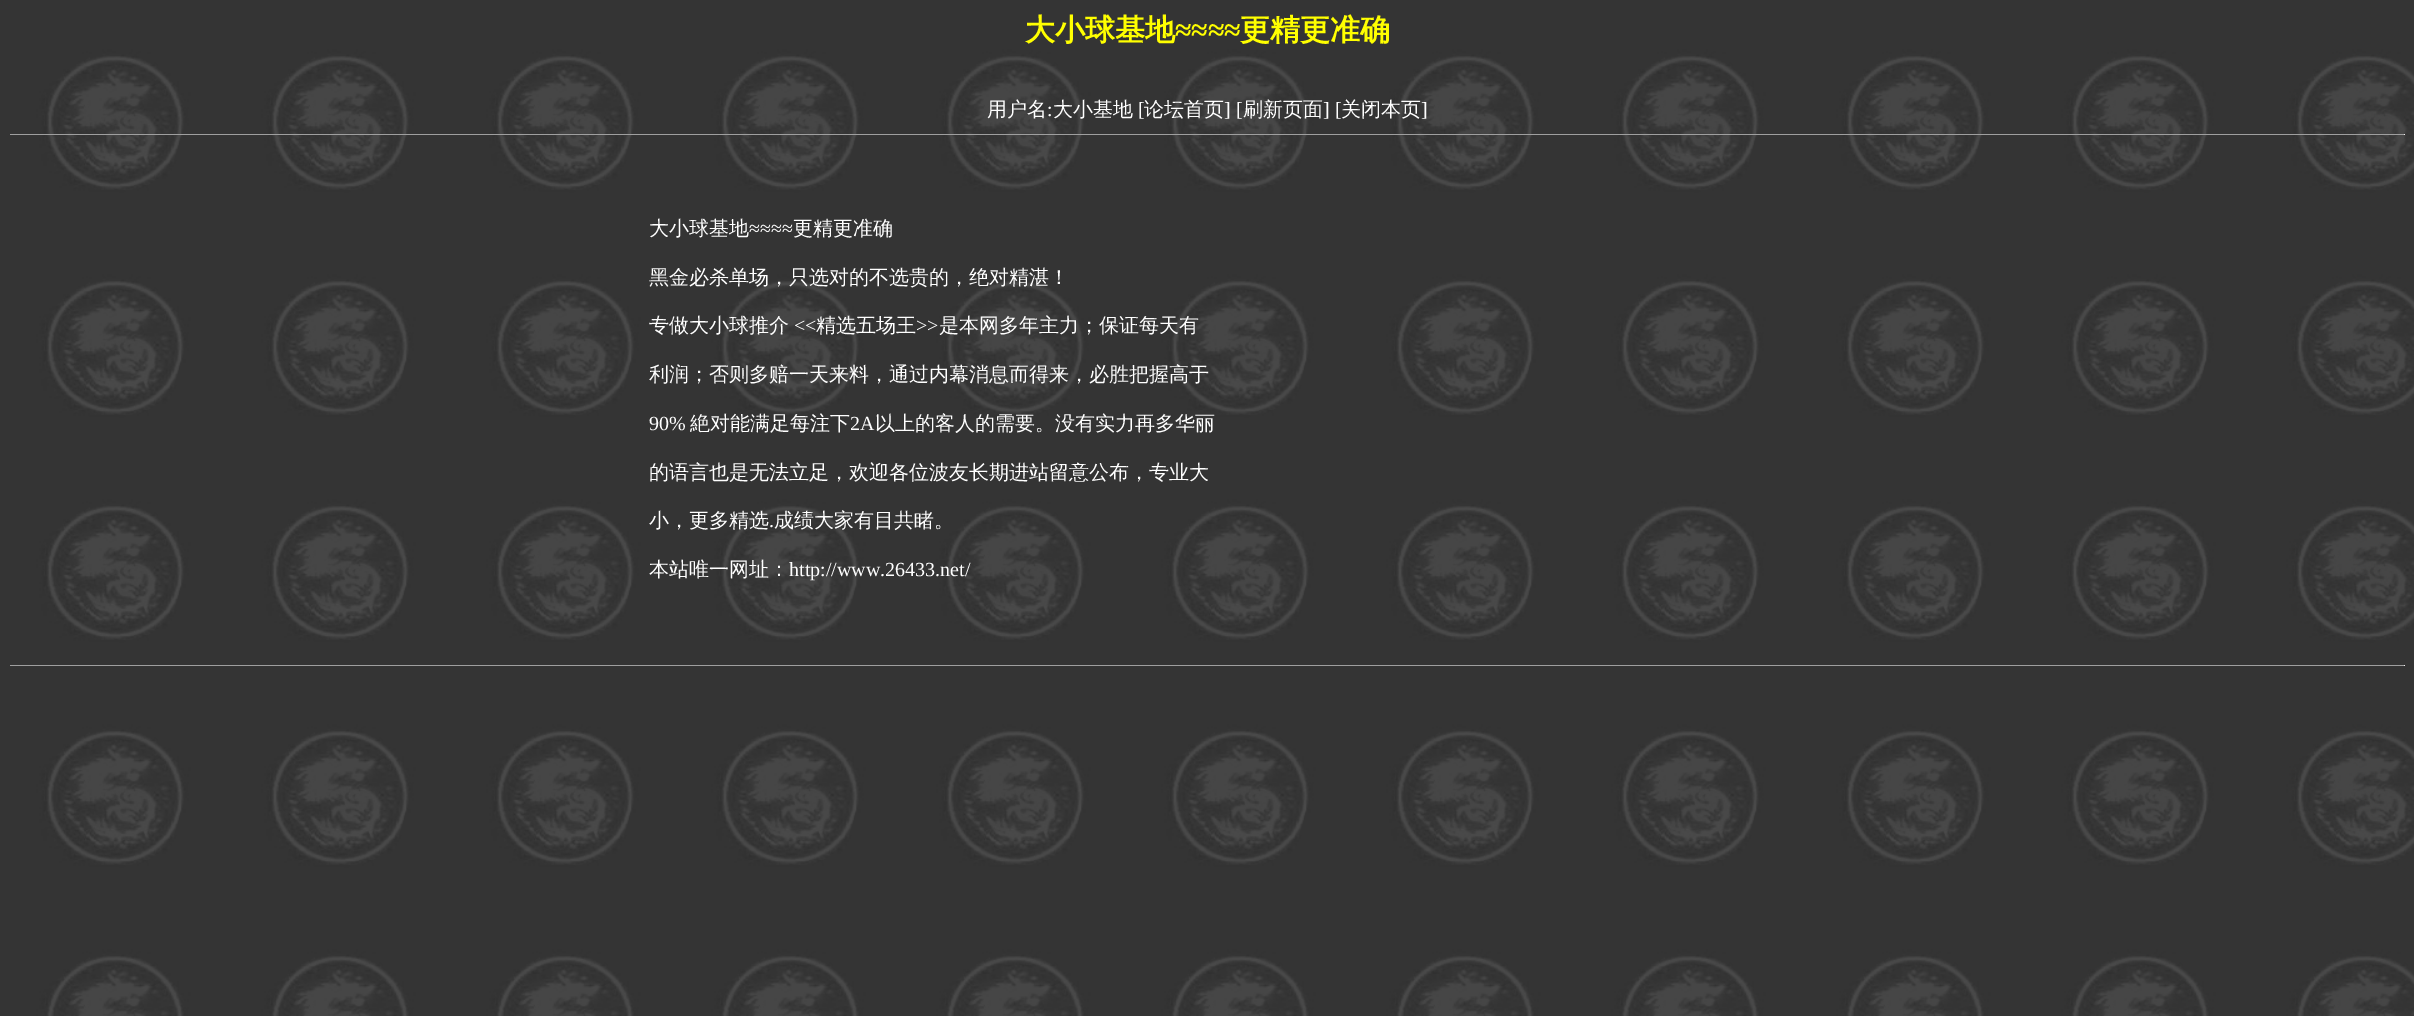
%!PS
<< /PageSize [2414 1016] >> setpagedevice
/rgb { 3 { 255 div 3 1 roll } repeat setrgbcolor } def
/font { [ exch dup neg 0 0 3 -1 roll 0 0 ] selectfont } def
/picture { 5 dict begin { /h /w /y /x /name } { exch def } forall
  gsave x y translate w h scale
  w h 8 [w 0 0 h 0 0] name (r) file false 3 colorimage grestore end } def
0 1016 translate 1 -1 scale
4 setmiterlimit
255 255 255 rgb
0 0 2414 1016 rectfill
(img/1.rgb) 0 0 2414 1016 picture
[
  [10 134 2395 1 159 159 159]
  [2404 134 1 1 238 238 238]
  [10 665 2395 1 159 159 159]
  [2404 665 1 1 238 238 238]
] { aload pop rgb rectfill } forall
/WenQuanYiZenHei-Bold 30 font
255 255 0 rgb
1025 40 moveto (大小球基地) show
/LiberationSerif-Bold 30 font
1175 40 moveto (≈≈≈≈) show
/WenQuanYiZenHei-Bold 30 font
1240 40 moveto (更精更准确) show
/WenQuanYiZenHei-Medium 20 font
255 255 255 rgb
987 116 moveto (用户名) show
/LiberationSerif-Regular 20 font
1047 116 moveto (:) show
/WenQuanYiZenHei-Medium 20 font
1053 116 moveto (大小基地) show
/LiberationSerif-Regular 20 font
1138 116 moveto ([) show
/WenQuanYiZenHei-Medium 20 font
1144 116 moveto (论坛首页) show
/LiberationSerif-Regular 20 font
1224 116 moveto (] [) show
/WenQuanYiZenHei-Medium 20 font
1243 116 moveto (刷新页面) show
/LiberationSerif-Regular 20 font
1323 116 moveto (] [) show
/WenQuanYiZenHei-Medium 20 font
1341 116 moveto (关闭本页) show
/LiberationSerif-Regular 20 font
1421 116 moveto (]) show
/WenQuanYiZenHei-Medium 20 font
649 235 moveto (大小球基地) show
/LiberationSerif-Regular 20 font
749 235 moveto (≈≈≈≈) show
/WenQuanYiZenHei-Medium 20 font
[
  [(更精更准确) 793 235]
  [(黑金必杀单场，只选对的不选贵的，绝对精湛！) 649 284]
  [(专做大小球推介) 649 332]
] { aload pop moveto show } forall
/LiberationSerif-Regular 20 font
794 332 moveto (<<) show
/WenQuanYiZenHei-Medium 20 font
816 332 moveto (精选五场王) show
/LiberationSerif-Regular 20 font
916 332 moveto (>>) show
/WenQuanYiZenHei-Medium 20 font
939 332 moveto (是本网多年主力；保证每天有) show
649 381 moveto (利润；否则多赔一天来料，通过内幕消息而得来，必胜把握高于) show
/LiberationSerif-Regular 20 font
649 430 moveto (90%) show
/WenQuanYiZenHei-Medium 20 font
690 430 moveto (絶对能满足每注下) show
/LiberationSerif-Regular 20 font
850 430 moveto (2A) show
/WenQuanYiZenHei-Medium 20 font
[
  [(以上的客人的需要。没有实力再多华丽) 875 430]
  [(的语言也是无法立足，欢迎各位波友长期进站留意公布，专业大) 649 479]
  [(小，更多精选) 649 527]
] { aload pop moveto show } forall
/LiberationSerif-Regular 20 font
769 527 moveto (.) show
/WenQuanYiZenHei-Medium 20 font
774 527 moveto (成绩大家有目共睹。) show
649 576 moveto (本站唯一网址：) show
/LiberationSerif-Regular 20 font
789 576 moveto (http://www.26433.net/) show
showpage
